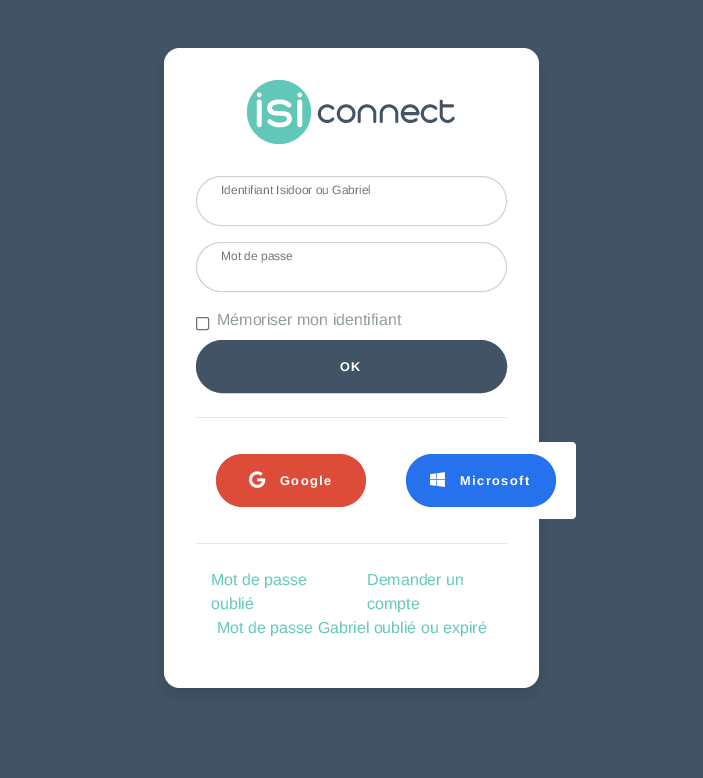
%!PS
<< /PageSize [703 778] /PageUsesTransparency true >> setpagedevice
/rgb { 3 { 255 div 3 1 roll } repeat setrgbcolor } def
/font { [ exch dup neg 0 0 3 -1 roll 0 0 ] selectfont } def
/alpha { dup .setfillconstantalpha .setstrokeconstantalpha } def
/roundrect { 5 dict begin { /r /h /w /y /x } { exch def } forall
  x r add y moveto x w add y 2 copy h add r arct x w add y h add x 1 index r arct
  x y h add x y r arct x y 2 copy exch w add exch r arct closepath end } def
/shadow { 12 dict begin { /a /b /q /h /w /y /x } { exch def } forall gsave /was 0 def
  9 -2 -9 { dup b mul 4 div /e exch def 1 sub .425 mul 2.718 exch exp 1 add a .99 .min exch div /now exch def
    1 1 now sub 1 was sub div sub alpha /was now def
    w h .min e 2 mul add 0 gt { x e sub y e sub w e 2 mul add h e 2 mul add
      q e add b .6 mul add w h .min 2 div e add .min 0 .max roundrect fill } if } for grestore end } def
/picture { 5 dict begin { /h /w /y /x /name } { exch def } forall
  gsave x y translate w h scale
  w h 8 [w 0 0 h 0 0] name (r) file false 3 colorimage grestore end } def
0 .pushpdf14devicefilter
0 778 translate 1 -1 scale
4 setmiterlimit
65 83 100 rgb
0 0 703 778 rectfill
0 0 0 rgb
164 56 375 640 16 8 0.1 shadow
255 255 255 rgb
164 48 375 640 16 roundrect fill
(img/1.rgb) 247 80 208 64 picture
206 212 218 rgb
196.5 176.5 310 49 24.5 roundrect stroke
196.5 242.5 310 49 24.5 roundrect stroke
118 118 118 rgb
196.5 317.5 12 12 1.5 roundrect stroke
65 83 100 rgb
196.5 340.5 310 52 26 roundrect gsave fill grestore
stroke
228 231 232 rgb
196 417 311 1 rectfill
221 75 57 rgb
216 454 150 53 26.5 roundrect fill
(img/2.rgb) 249 471 17 17 picture
255 255 255 rgb
386 442 moveto 572 442 lineto 574 442 576 444 576 446 curveto 576 515 lineto 576 517 574 519 572 519 curveto 386 519 lineto closepath fill
38 114 236 rgb
406 454 150 53 26.5 roundrect fill
(img/3.rgb) 430 472 15 15 picture
228 231 232 rgb
196 543 311 1 rectfill
/LiberationSans-Regular 12 font
119 119 119 rgb
221 194 moveto (Identifiant Isidoor ou Gabriel) show
221 260 moveto (Mot de passe) show
/LiberationSans-Regular 16 font
146 157 161 rgb
217 325 moveto (Mémoriser mon identifiant) show
/LiberationSans-Bold 12.75 font
255 255 255 rgb
340 371 moveto 1.5 0 (OK) ashow
280 485 moveto 1.5 0 (Google) ashow
460 485 moveto 1.5 0 (Microsoft) ashow
/LiberationSans-Regular 16 font
102 201 186 rgb
[
  [(Mot de passe) 211 585]
  [(oublié) 211 609]
  [(Demander un) 367 585]
  [(compte) 367 609]
  [(Mot de passe Gabriel oublié ou expiré) 217 633]
] { aload pop moveto show } forall
.poppdf14devicefilter showpage
